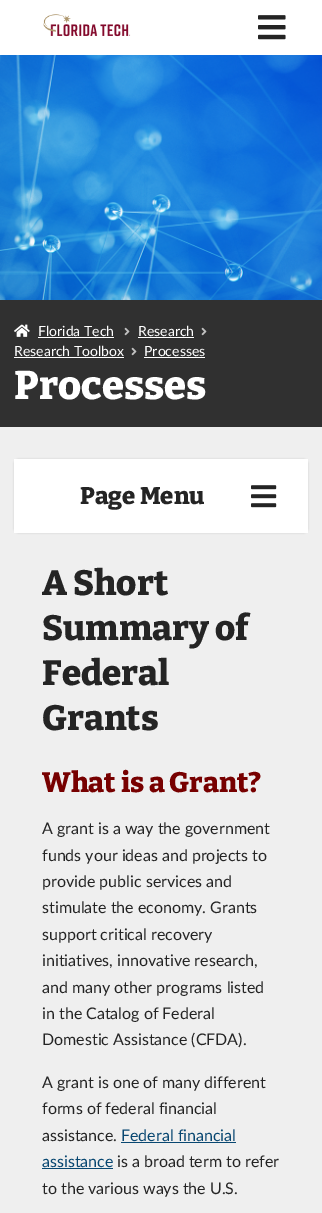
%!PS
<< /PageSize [322 1213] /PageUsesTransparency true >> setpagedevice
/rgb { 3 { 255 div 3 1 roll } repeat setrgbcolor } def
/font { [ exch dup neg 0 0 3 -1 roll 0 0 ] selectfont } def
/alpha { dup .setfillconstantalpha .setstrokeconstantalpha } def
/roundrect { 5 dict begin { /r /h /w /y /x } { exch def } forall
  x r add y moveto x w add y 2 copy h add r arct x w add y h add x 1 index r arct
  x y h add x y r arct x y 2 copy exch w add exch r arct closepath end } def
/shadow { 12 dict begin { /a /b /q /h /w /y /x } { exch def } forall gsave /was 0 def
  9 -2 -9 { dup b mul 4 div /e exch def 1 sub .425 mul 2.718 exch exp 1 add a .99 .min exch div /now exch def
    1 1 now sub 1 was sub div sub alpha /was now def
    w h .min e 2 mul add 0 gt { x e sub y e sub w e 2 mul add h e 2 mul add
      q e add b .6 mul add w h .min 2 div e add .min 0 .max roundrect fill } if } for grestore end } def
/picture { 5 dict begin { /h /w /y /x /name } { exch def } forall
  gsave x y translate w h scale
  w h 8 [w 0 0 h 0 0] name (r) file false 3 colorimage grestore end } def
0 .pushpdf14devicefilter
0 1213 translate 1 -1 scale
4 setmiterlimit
255 255 255 rgb
0 0 322 1213 rectfill
(img/1.rgb) 43 14 88 23 picture
(img/2.rgb) 258 15 28 25 picture
239 239 239 rgb
0 427 322 786 rectfill
(img/3.rgb) 0 55 322 245 picture
48 48 48 rgb
0 300 322 127 rectfill
(img/4.rgb) 14 324 16 13 picture
255 255 255 rgb
38 337 76 1 rectfill
(img/5.rgb) 124 327 6 9 picture
138 337 56 1 rectfill
(img/5.rgb) 201 327 6 9 picture
14 357 110 1 rectfill
(img/5.rgb) 131 347 6 9 picture
144 357 61 1 rectfill
204 204 204 rgb
14 459 294 74 5 1 1 shadow
255 255 255 rgb
14 459 294 74 rectfill
(img/6.rgb) 251 485 26 23 picture
8 71 113 rgb
121 1142 115 1 rectfill
42 1168 71 1 rectfill
/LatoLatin-Regular 14 font
255 255 255 rgb
[
  [(Florida Tech) 38 336]
  [(Research) 138 336]
  [(Research Toolbox) 14 356]
  [(Processes) 144 356]
] { aload pop moveto show } forall
/Bitter-ExtraBold 40 font
14 399 moveto (Processes) show
/Bitter-ExtraBold 24 font
36 36 36 rgb
80 504 moveto (Page Menu) show
/Bitter-ExtraBold 35 font
[
  [(A Short) 42 595]
  [(Summary of) 42 640]
  [(Federal) 42 685]
  [(Grants) 42 730]
] { aload pop moveto show } forall
/Bitter-ExtraBold 28 font
119 0 0 rgb
42 792 moveto (What is a Grant?) show
/LatoLatin-Regular 16 font
36 36 36 rgb
[
  [(A grant is a way the government) 42 834]
  [(funds your ideas and projects to) 42 861]
  [(provide public services and) 42 887]
  [(stimulate the economy. Grants) 42 913]
  [(support critical recovery) 42 940]
  [(initiatives, innovative research,) 42 966]
  [(and many other programs listed) 42 993]
  [(in the Catalog of Federal) 42 1019]
  [(Domestic Assistance \(CFDA\).) 42 1045]
  [(A grant is one of many different) 42 1088]
  [(forms of federal financial) 42 1114]
  [(assistance.) 42 1141]
] { aload pop moveto show } forall
8 71 113 rgb
121 1141 moveto (Federal financial) show
42 1167 moveto (assistance) show
36 36 36 rgb
117 1167 moveto (is a broad term to refer) show
42 1194 moveto (to the various ways the U.S.) show
.poppdf14devicefilter showpage
